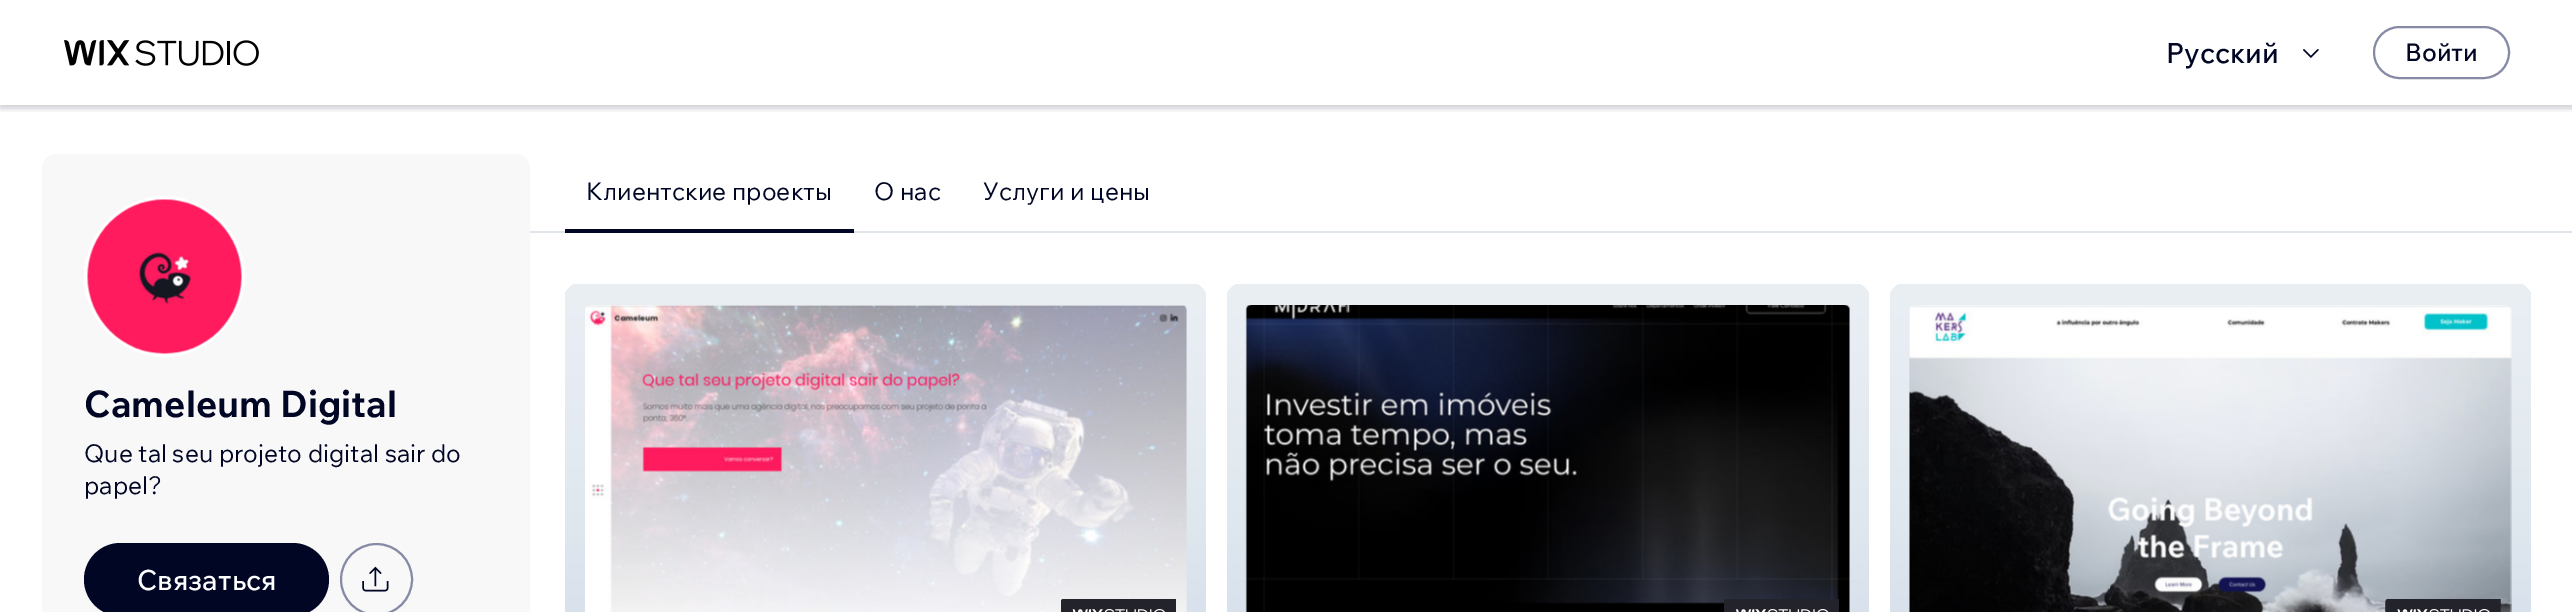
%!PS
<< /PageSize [2572 612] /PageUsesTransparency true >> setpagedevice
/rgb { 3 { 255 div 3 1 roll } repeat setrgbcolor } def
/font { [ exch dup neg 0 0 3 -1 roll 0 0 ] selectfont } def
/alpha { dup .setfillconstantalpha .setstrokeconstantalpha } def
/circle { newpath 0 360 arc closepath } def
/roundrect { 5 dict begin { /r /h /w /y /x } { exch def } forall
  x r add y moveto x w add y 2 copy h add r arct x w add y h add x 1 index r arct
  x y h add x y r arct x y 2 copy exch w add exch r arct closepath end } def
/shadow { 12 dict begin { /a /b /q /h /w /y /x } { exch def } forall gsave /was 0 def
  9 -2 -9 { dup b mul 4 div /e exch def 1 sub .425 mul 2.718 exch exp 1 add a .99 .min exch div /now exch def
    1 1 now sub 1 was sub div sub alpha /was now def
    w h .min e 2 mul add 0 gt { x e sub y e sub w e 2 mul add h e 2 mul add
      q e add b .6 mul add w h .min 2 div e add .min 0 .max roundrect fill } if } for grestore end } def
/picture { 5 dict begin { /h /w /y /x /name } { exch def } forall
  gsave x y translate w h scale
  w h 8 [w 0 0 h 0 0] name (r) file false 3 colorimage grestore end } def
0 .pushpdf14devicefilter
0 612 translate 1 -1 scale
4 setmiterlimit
255 255 255 rgb
0 0 2572 612 rectfill
gsave
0 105 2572 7 rectclip
0 6 36 rgb
0 4 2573 105 0 3.5 0.12 shadow
grestore
gsave
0 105 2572 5 rectclip
0 6 36 rgb
0 0 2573 105 0 5 0.12 shadow
grestore
(img/1.rgb) 64 40 66 26 picture
(img/2.rgb) 135 40 124 26 picture
(img/3.rgb) 2303 49 16 9 picture
134 138 165 rgb
2 setlinewidth
2374 27 135 51 25.5 roundrect stroke
223 229 235 rgb
530 231 2042 2 rectfill
0 6 36 rgb
565 229 289 4 rectfill
gsave 565 284 641 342 14 roundrect clip newpath
<< /ShadingType 2 /ColorSpace /DeviceRGB /Coords [886 283 886 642] /Extend [true true] /Function << /FunctionType 3 /Domain [0 1] /Functions [<< /FunctionType 2 /Domain [0 1] /C0 [0.918 0.937 0.957] /C1 [0.886 0.918 0.941] /N 1 >> << /FunctionType 2 /Domain [0 1] /C0 [0.886 0.918 0.941] /C1 [0.843 0.882 0.922] /N 1 >>] /Bounds [0.5] /Encode [0 1 0 1] >> >> shfill grestore
223 229 235 rgb
590 305 moveto 1182 305 lineto 1185 305 1187 307 1187 310 curveto 1187 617 lineto 585 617 lineto 585 310 lineto 585 307 587 305 590 305 curveto closepath fill
(img/4.rgb) 585 305 602 307 picture
(img/5.rgb) 1061 599 115 13 picture
gsave 1227 284 642 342 14 roundrect clip newpath
<< /ShadingType 2 /ColorSpace /DeviceRGB /Coords [1548 283 1548 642] /Extend [true true] /Function << /FunctionType 3 /Domain [0 1] /Functions [<< /FunctionType 2 /Domain [0 1] /C0 [0.918 0.937 0.957] /C1 [0.886 0.918 0.941] /N 1 >> << /FunctionType 2 /Domain [0 1] /C0 [0.886 0.918 0.941] /C1 [0.843 0.882 0.922] /N 1 >>] /Bounds [0.5] /Encode [0 1 0 1] >> >> shfill grestore
1251 305 moveto 1845 305 lineto 1848 305 1850 307 1850 310 curveto 1850 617 lineto 1246 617 lineto 1246 310 lineto 1246 307 1248 305 1251 305 curveto closepath fill
(img/6.rgb) 1245 305 605 307 picture
(img/7.rgb) 1724 599 115 13 picture
gsave 1890 284 641 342 14 roundrect clip newpath
<< /ShadingType 2 /ColorSpace /DeviceRGB /Coords [2210 283 2210 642] /Extend [true true] /Function << /FunctionType 3 /Domain [0 1] /Functions [<< /FunctionType 2 /Domain [0 1] /C0 [0.918 0.937 0.957] /C1 [0.886 0.918 0.941] /N 1 >> << /FunctionType 2 /Domain [0 1] /C0 [0.886 0.918 0.941] /C1 [0.843 0.882 0.922] /N 1 >>] /Bounds [0.5] /Encode [0 1 0 1] >> >> shfill grestore
1914 305 moveto 2506 305 lineto 2509 305 2511 307 2511 310 curveto 2511 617 lineto 1909 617 lineto 1909 310 lineto 1909 307 1911 305 1914 305 curveto closepath fill
(img/8.rgb) 1909 305 603 307 picture
(img/9.rgb) 2385 599 116 13 picture
248 248 249 rgb
42 154 488 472 14 roundrect fill
255 255 255 rgb
4 setlinewidth
164.5 276.5 78.5 circle stroke
(img/10.rgb) 87 199 155 155 picture
0 6 36 rgb
84 543 245 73 36.5 roundrect fill
134 138 165 rgb
2 setlinewidth
376.5 579.5 35.5 circle stroke
(img/11.rgb) 362 566 27 26 picture
/WixMadeforText-Medium 28 font
0 6 36 rgb
2166 63 moveto (Русский) show
/WixMadeforText-Medium 24.5 font
2405 61 moveto (Войти) show
/WixMadeforText-Regular 24.5 font
[
  [(Клиентские проекты) 586 200]
  [(О нас) 874 200]
  [(Услуги и цены) 983 200]
] { aload pop moveto show } forall
/WixMadeforText-Bold 36.75 font
84 417 moveto (Cameleum Digital) show
/WixMadeforText-Regular 24.5 font
84 462 moveto (Que tal seu projeto digital sair do) show
84 494 moveto (papel?) show
/WixMadeforText-Medium 28 font
255 255 255 rgb
137 590 moveto (Связаться) show
.poppdf14devicefilter showpage
